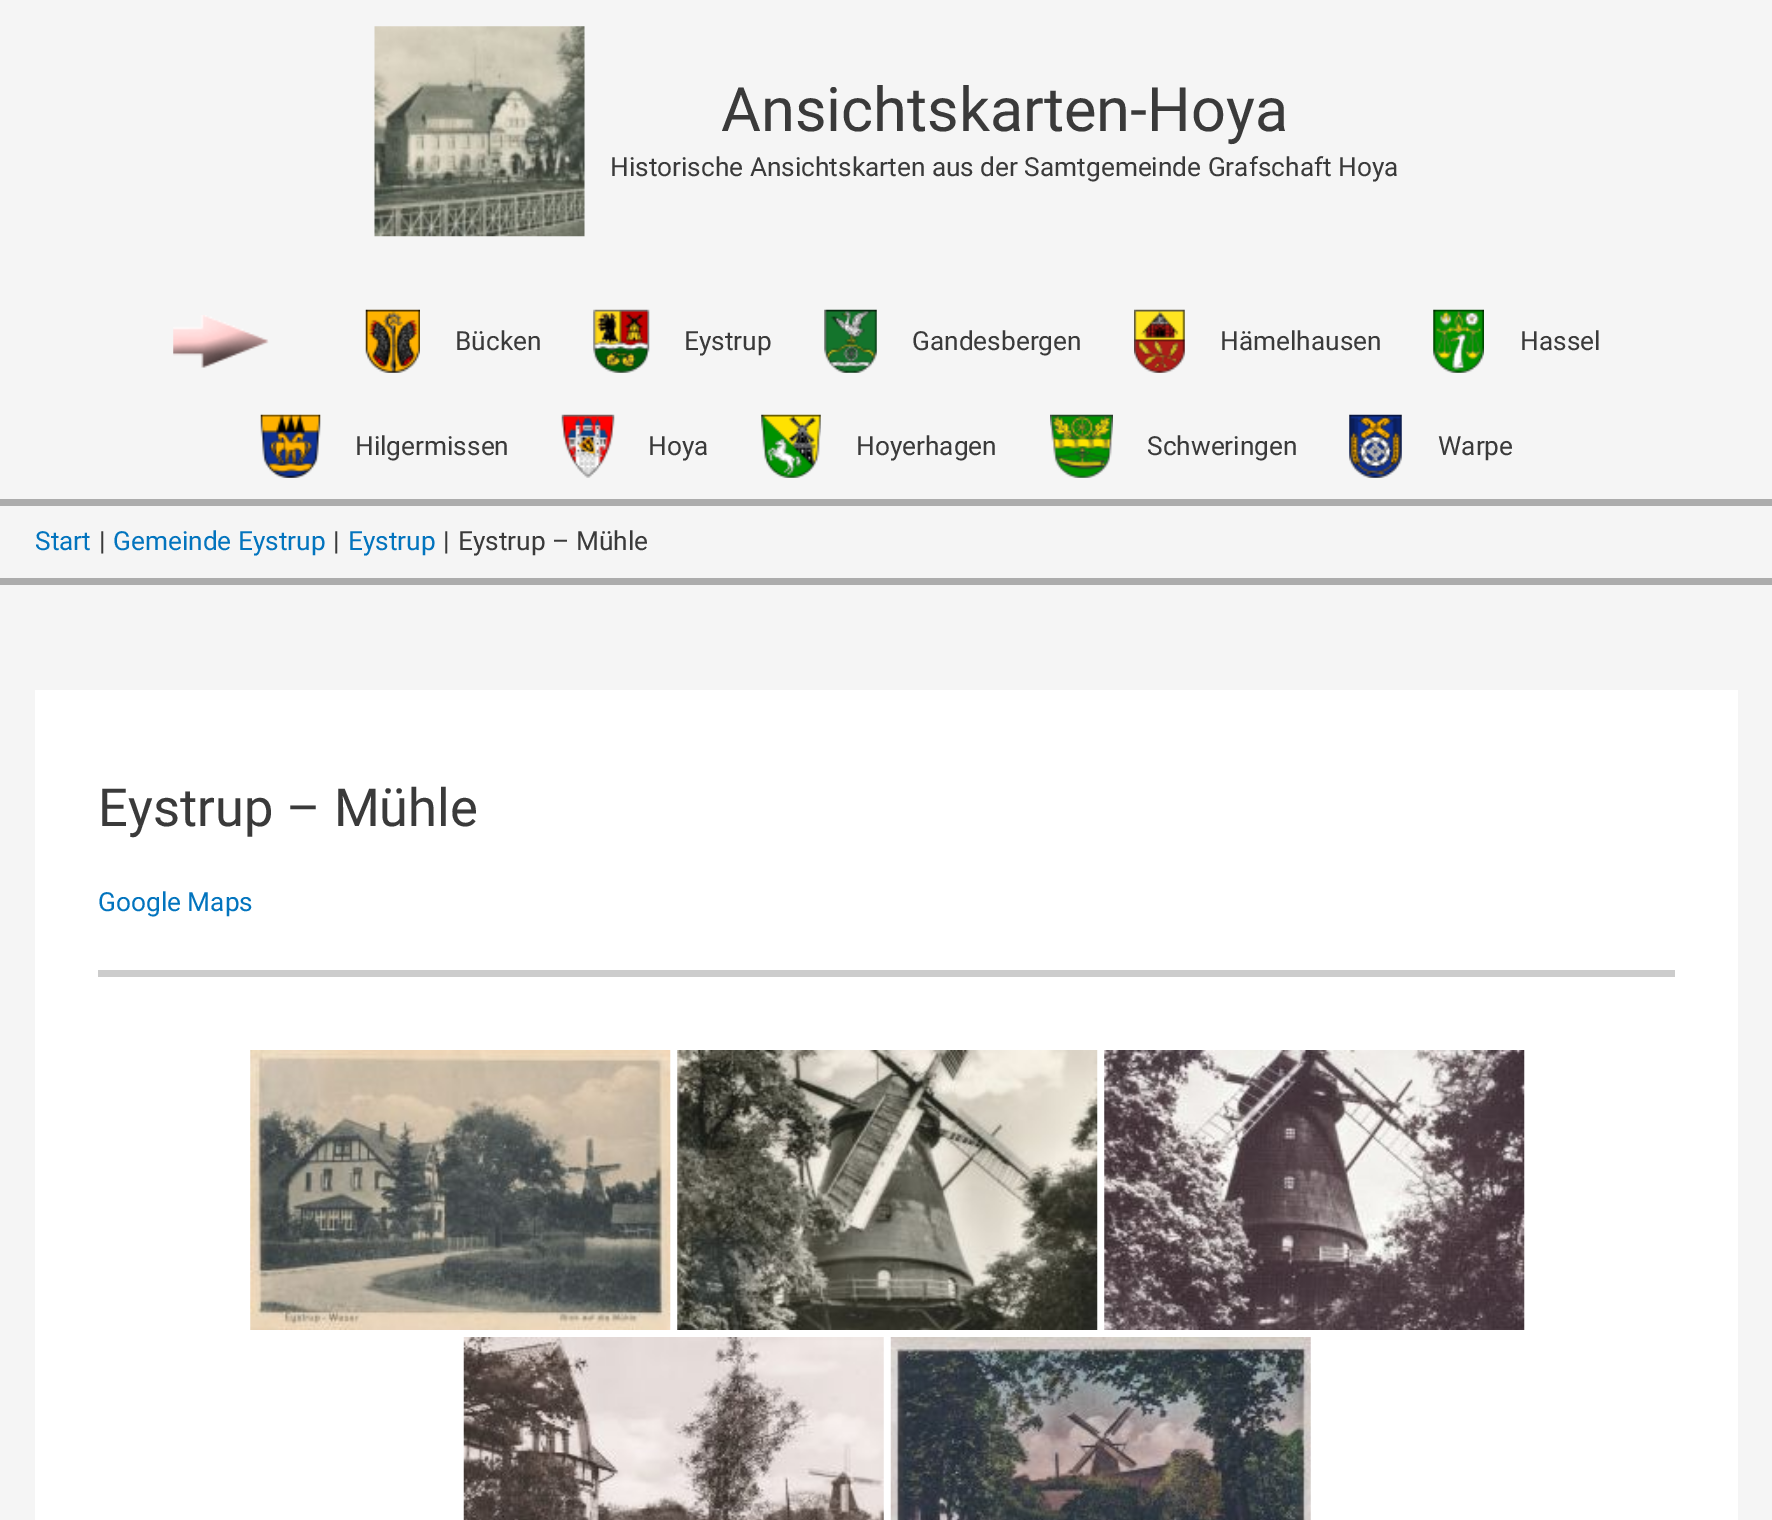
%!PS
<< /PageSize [1772 1520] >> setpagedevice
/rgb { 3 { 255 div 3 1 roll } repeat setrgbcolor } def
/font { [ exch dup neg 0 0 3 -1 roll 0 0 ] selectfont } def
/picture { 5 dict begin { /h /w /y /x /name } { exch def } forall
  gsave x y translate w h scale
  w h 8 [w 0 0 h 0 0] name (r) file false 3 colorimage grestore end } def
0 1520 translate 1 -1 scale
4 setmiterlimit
245 245 245 rgb
0 0 1772 1520 rectfill
172 172 172 rgb
0 499 1772 7 rectfill
(img/1.rgb) 374 26 211 211 picture
(img/2.rgb) 173 315 96 53 picture
(img/3.rgb) 365 309 55 64 picture
(img/4.rgb) 593 309 57 64 picture
(img/5.rgb) 824 309 53 64 picture
(img/6.rgb) 1134 309 51 64 picture
(img/7.rgb) 1433 309 51 64 picture
(img/8.rgb) 260 414 61 64 picture
(img/9.rgb) 561 414 54 64 picture
(img/10.rgb) 761 414 60 64 picture
(img/11.rgb) 1050 414 63 64 picture
(img/12.rgb) 1349 414 53 64 picture
[
  [0 578 1772 7 172 172 172]
  [35 690 1703 830 255 255 255]
  [98 970 1577 7 204 204 204]
] { aload pop rgb rectfill } forall
(img/13.rgb) 250 1050 421 280 picture
(img/14.rgb) 677 1050 421 280 picture
(img/15.rgb) 1104 1050 421 280 picture
(img/16.rgb) 463 1337 421 183 picture
(img/17.rgb) 890 1337 421 183 picture
/Roboto-Regular 61.25 font
58 58 58 rgb
721 131 moveto (Ansichtskarten-Hoya) show
/Roboto-Regular 26.25 font
[
  [(Historische Ansichtskarten aus der Samtgemeinde Grafschaft Hoya) 610 176]
  [(Bücken) 455 350]
  [(Eystrup) 684 350]
  [(Gandesbergen) 912 350]
  [(Hämelhausen) 1220 350]
  [(Hassel) 1520 350]
  [(Hilgermissen) 355 455]
  [(Hoya) 648 455]
  [(Hoyerhagen) 856 455]
  [(Schweringen) 1147 455]
  [(Warpe) 1438 455]
] { aload pop moveto show } forall
2 116 190 rgb
35 550 moveto (Start) show
58 58 58 rgb
99 550 moveto (|) show
2 116 190 rgb
113 550 moveto (Gemeinde Eystrup) show
58 58 58 rgb
333 550 moveto (|) show
2 116 190 rgb
348 550 moveto (Eystrup) show
58 58 58 rgb
443 550 moveto (|) show
458 550 moveto (Eystrup – Mühle) show
/Roboto-Regular 52.5 font
98 826 moveto (Eystrup – Mühle) show
/Roboto-Regular 26.25 font
2 116 190 rgb
98 911 moveto (Google Maps) show
showpage
